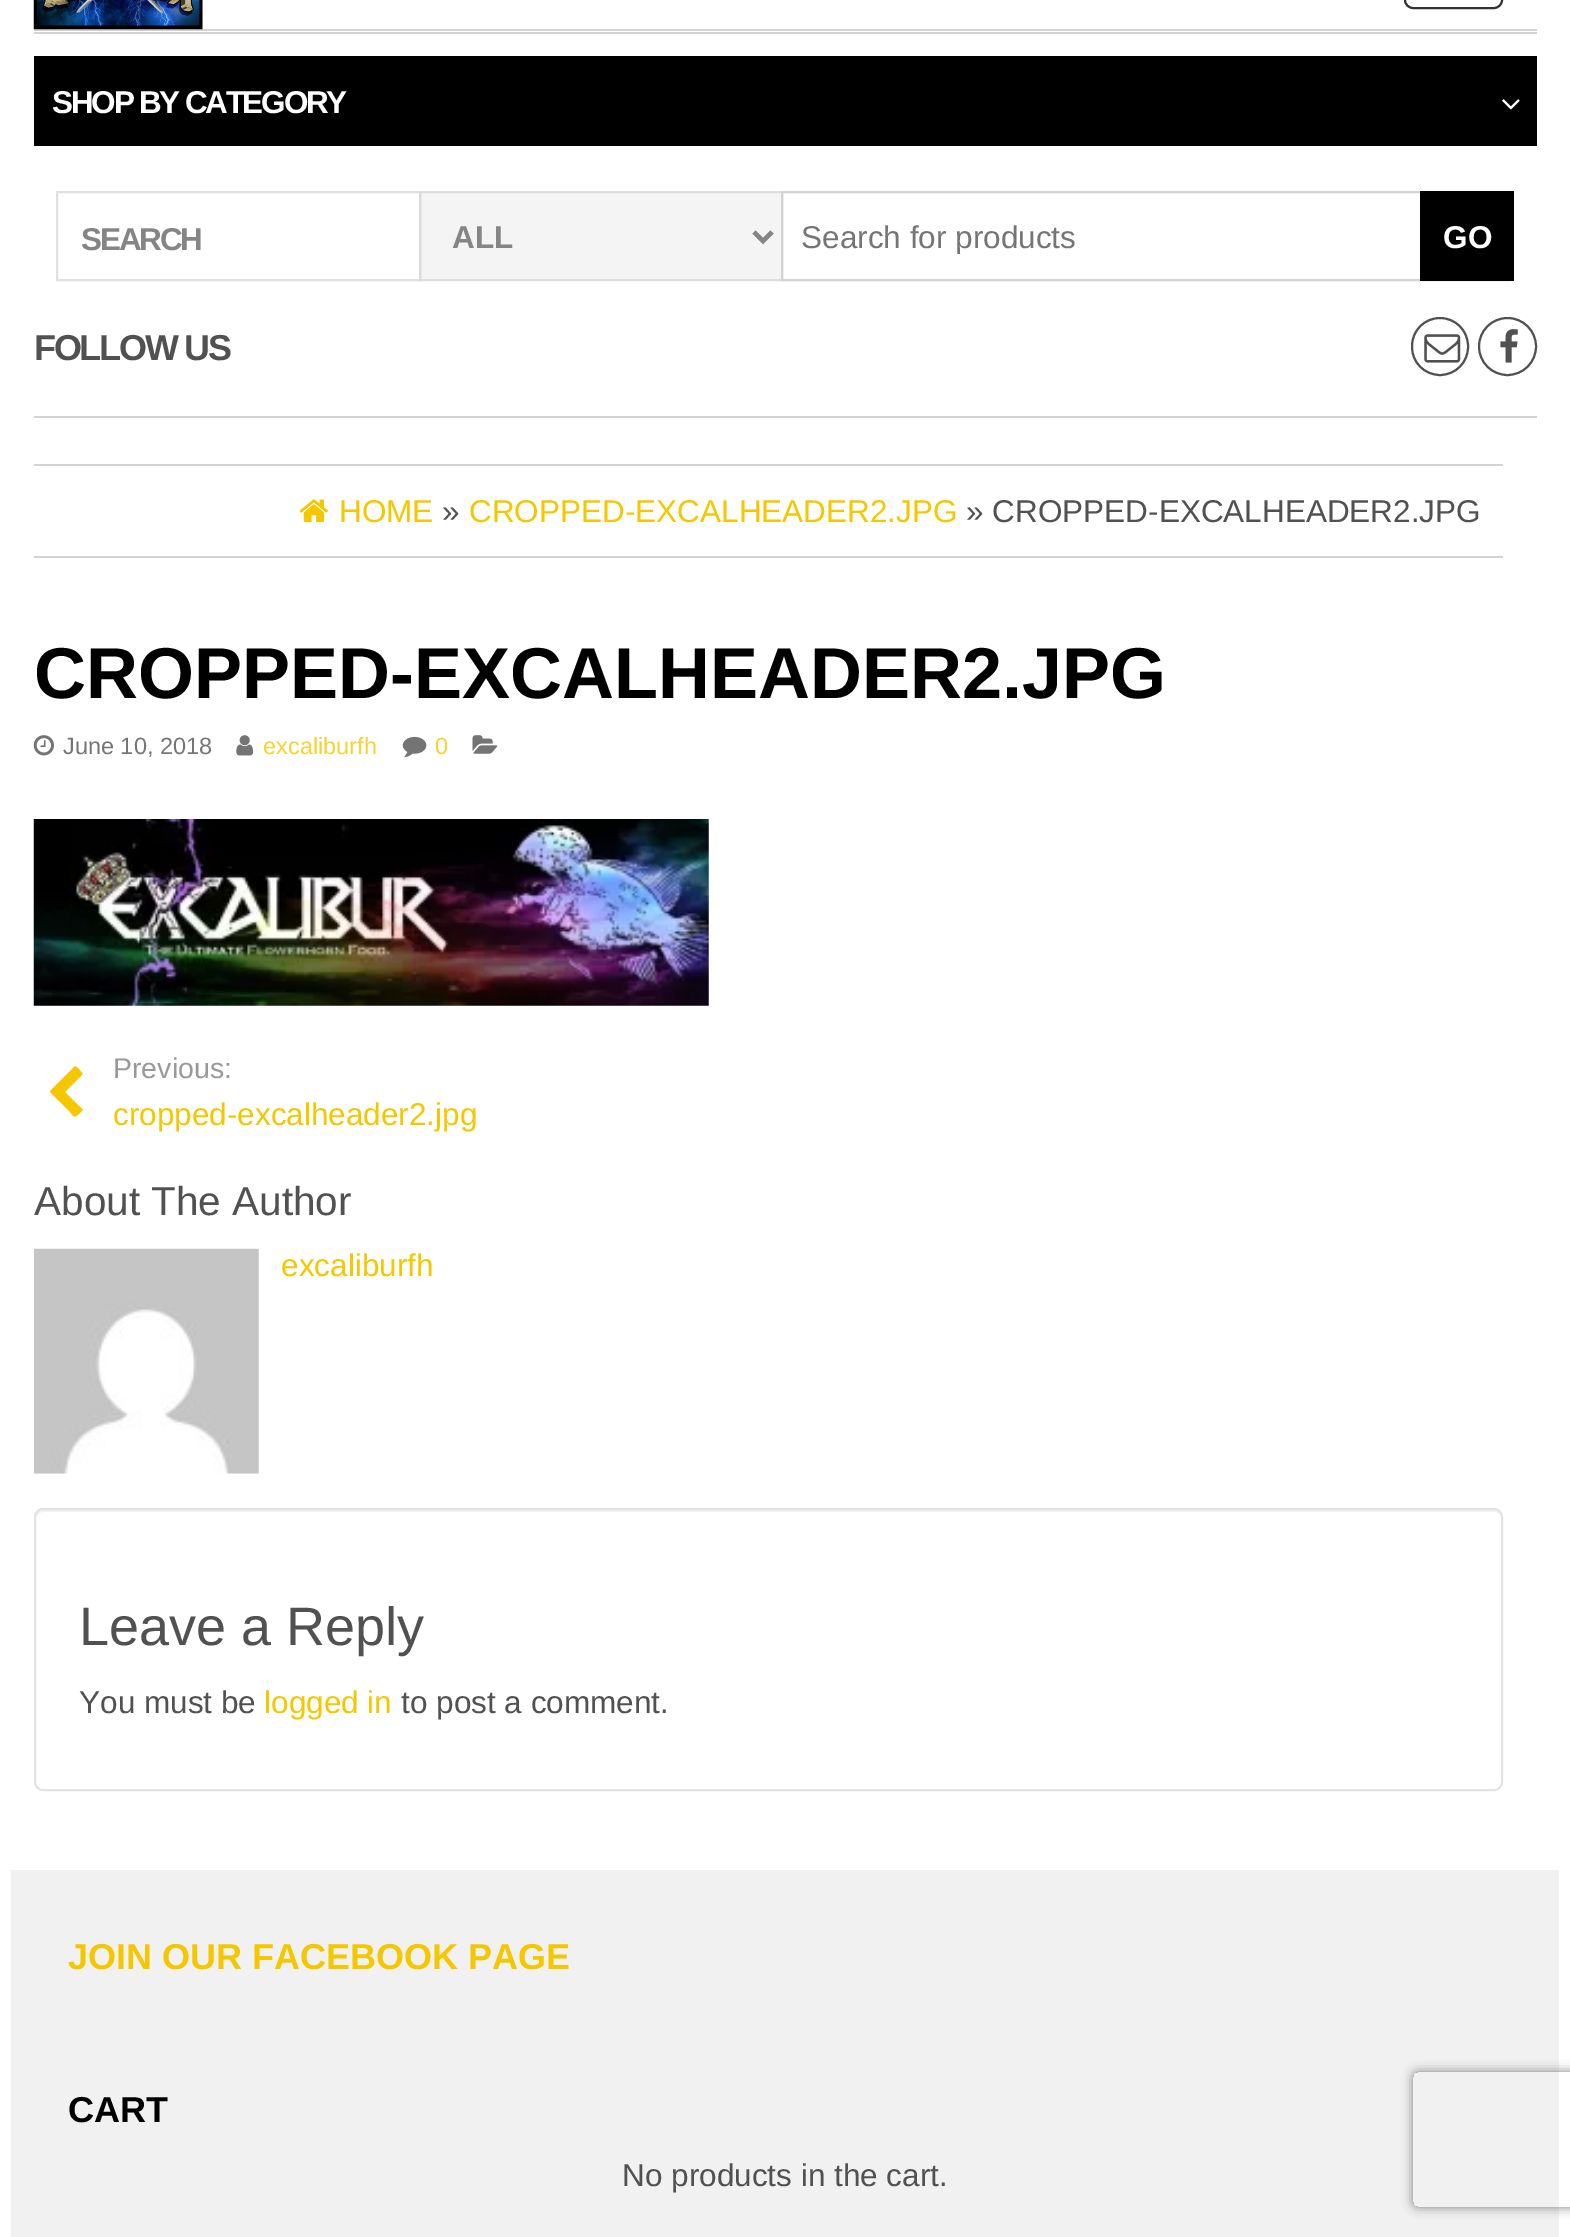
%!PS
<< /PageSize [1570 2237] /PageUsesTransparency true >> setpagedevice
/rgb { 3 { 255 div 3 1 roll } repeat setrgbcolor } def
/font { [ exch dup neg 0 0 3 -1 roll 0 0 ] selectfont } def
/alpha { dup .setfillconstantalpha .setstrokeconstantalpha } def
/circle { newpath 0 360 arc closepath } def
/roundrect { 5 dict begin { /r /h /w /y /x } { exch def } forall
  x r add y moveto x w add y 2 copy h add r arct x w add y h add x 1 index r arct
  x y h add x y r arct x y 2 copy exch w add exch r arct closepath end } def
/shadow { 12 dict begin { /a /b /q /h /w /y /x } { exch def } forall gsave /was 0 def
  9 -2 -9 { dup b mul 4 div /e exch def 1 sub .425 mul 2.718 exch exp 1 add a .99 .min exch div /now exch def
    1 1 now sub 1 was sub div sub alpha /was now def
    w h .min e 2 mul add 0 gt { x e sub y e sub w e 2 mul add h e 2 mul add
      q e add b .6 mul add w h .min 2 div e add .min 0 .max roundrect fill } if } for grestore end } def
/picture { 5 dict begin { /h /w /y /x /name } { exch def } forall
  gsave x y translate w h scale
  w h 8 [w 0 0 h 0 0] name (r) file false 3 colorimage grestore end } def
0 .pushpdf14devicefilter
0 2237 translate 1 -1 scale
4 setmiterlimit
255 255 255 rgb
0 0 1570 2237 rectfill
211 211 211 rgb
34 32 1503 2 rectfill
34 29 1503 2 rectfill
(img/1.rgb) 33 0 170 30 picture
51 51 51 rgb
2 setlinewidth
1405 -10 97 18 8 roundrect stroke
211 211 211 rgb
34 416 1503 2 rectfill
0 0 0 rgb
34 56 1503 90 rectfill
(img/2.rgb) 1502 99 18 11 picture
224 224 224 rgb
57 192 363 88 rectstroke
0.7 alpha
239 239 239 rgb
419 191 362 90 rectfill
211 211 211 rgb
420 192 362 88 rectstroke
1 alpha
133 133 133 rgb
4.5 setlinewidth
754 232 moveto 763 241 lineto 772 232 lineto stroke
211 211 211 rgb
2 setlinewidth
782 192 727 88 rectstroke
0 0 0 rgb
1420 191 94 90 rectfill
81 81 81 rgb
1412 318 56 57 28 roundrect stroke
(img/3.rgb) 1424 334 37 29 picture
1507.5 346.5 28.5 circle stroke
(img/4.rgb) 1500 329 18 34 picture
211 211 211 rgb
34 464 1469 2 rectfill
34 556 1469 2 rectfill
(img/5.rgb) 299 499 29 23 picture
(img/6.rgb) 33 735 21 21 picture
(img/7.rgb) 236 735 18 21 picture
(img/8.rgb) 402 736 25 22 picture
(img/9.rgb) 472 735 26 19 picture
(img/10.rgb) 33 819 676 187 picture
244 199 0 rgb
82 1075 moveto 65 1092 lineto 79 1106 lineto 83 1110 84 1109 80 1113 curveto 74 1118 75 1118 70 1112 curveto 50 1092 lineto 50 1091 lineto 74 1067 lineto 76 1065 77 1068 79 1069 curveto 82 1073 lineto 83 1073 82 1074 82 1075 curveto closepath fill
(img/11.rgb) 34 1248 225 226 picture
242 242 242 rgb
43 1512 moveto 1494 1512 lineto 1498 1512 1501 1515 1501 1519 curveto 1501 1517 lineto 1501 1513 1498 1510 1494 1510 curveto 43 1510 lineto 39 1510 36 1513 36 1517 curveto 36 1519 lineto 36 1515 39 1512 43 1512 curveto closepath fill
227 227 227 rgb
35 1509 1467 281 8 roundrect stroke
241 241 241 rgb
11 1870 1548 367 rectfill
gsave
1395 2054 moveto 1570 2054 lineto 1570 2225 lineto 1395 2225 lineto closepath 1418 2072 moveto 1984 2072 lineto 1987 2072 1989 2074 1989 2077 curveto 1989 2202 lineto 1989 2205 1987 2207 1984 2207 curveto 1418 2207 lineto 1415 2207 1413 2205 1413 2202 curveto 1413 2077 lineto 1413 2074 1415 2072 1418 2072 curveto closepath eoclip newpath
128 128 128 rgb
1413 2072 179 135 5 5.5 1 shadow
grestore
/LiberationSans-Bold 31.5 font
255 255 255 rgb
52 113 moveto -2.25 0 (SHOP BY CATEGORY) ashow
133 133 133 rgb
81 250 moveto -2.25 0 (SEARCH) ashow
452 248 moveto (ALL) show
gsave
801 218 689 36 rectclip
/LiberationSans-Regular 31.5 font
117 117 117 rgb
801 248 moveto (Search for products) show
grestore
255 255 255 rgb
1443 248 moveto (GO) show
/LiberationSans-Bold 36 font
81 81 81 rgb
34 360 moveto -2.25 0 (FOLLOW US) ashow
/LiberationSans-Regular 31.5 font
244 199 0 rgb
339 522 moveto (HOME) show
81 81 81 rgb
442 522 moveto (») show
244 199 0 rgb
469 522 moveto (CROPPED-EXCALHEADER2.JPG) show
81 81 81 rgb
966 522 moveto (» CROPPED-EXCALHEADER2.JPG) show
/LiberationSans-Bold 72 font
0 0 0 rgb
34 698 moveto (CROPPED-EXCALHEADER2.JPG) show
/LiberationSans-Regular 23.5 font
117 117 117 rgb
63 754 moveto (June 10, 2018) show
246 210 51 rgb
263 754 moveto (excaliburfh) show
435 754 moveto (0) show
/LiberationSans-Regular 28.5 font
153 153 153 rgb
113 1078 moveto (Previous:) show
/LiberationSans-Regular 31.5 font
244 199 0 rgb
113 1125 moveto (cropped-excalheader2.jpg) show
/LiberationSans-Regular 40.5 font
81 81 81 rgb
34 1215 moveto (About The Author) show
/LiberationSans-Regular 31.5 font
244 199 0 rgb
281 1276 moveto (excaliburfh) show
/LiberationSans-Regular 54 font
81 81 81 rgb
79 1645 moveto (Leave a Reply) show
/LiberationSans-Regular 31.5 font
79 1713 moveto (You must be) show
244 199 0 rgb
264 1713 moveto (logged in) show
81 81 81 rgb
401 1713 moveto (to post a comment.) show
/LiberationSans-Bold 36 font
244 199 0 rgb
68 1969 moveto (JOIN OUR FACEBOOK PAGE) show
0 0 0 rgb
68 2122 moveto (CART) show
/LiberationSans-Regular 31.5 font
81 81 81 rgb
622 2186 moveto (No products in the cart.) show
.poppdf14devicefilter showpage
